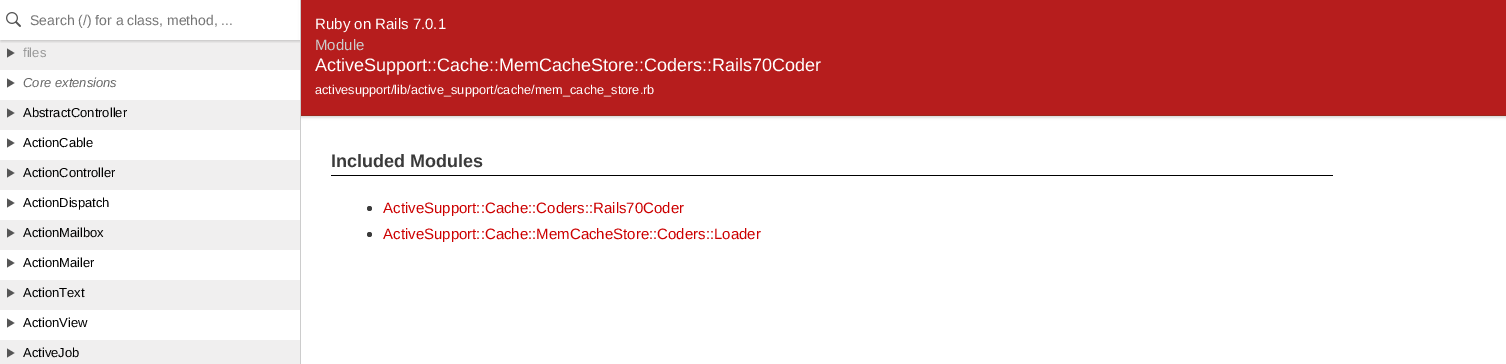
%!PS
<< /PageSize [1506 364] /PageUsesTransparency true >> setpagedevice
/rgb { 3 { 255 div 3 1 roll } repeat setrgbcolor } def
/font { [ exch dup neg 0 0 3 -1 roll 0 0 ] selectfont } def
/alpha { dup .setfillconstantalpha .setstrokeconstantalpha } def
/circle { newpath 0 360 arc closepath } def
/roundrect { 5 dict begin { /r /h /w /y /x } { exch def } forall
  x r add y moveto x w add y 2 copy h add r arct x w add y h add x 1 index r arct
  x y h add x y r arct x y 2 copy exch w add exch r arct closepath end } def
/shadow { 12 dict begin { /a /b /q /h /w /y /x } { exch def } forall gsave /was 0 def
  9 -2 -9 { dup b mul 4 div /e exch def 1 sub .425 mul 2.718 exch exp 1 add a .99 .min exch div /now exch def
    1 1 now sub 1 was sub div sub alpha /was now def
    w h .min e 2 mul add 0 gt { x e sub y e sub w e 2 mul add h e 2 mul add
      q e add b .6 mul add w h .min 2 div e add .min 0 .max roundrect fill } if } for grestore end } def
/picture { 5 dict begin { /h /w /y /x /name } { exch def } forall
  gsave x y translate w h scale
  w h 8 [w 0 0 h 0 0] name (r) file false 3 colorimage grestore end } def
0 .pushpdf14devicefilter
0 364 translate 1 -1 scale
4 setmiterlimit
255 255 255 rgb
0 0 1506 364 rectfill
0 0 0 rgb
301 1 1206 116 0 1.5 0.2 shadow
[
  [299 0 1 118 255 255 255]
  [300 115 1206 1 155 40 28]
  [300 0 1 364 204 204 204]
] { aload pop rgb rectfill } forall
(img/2.rgb) 0 40 300 324 picture
182 29 29 rgb
301 0 1205 115 rectfill
gsave
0 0 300 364 rectclip
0 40 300 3 rectclip
0 0 0 rgb
1 1 300 40 0 1.5 0.2 shadow
grestore
(img/1.rgb) 6 12 15 15 picture
85 85 85 rgb
7 48.5 moveto 7 57.5 lineto 14.5 53 lineto closepath fill
7 78.5 moveto 7 87.5 lineto 14.5 83 lineto closepath fill
7 108.5 moveto 7 117.5 lineto 14.5 113 lineto closepath fill
7 138.5 moveto 7 147.5 lineto 14.5 143 lineto closepath fill
7 168.5 moveto 7 177.5 lineto 14.5 173 lineto closepath fill
7 198.5 moveto 7 207.5 lineto 14.5 203 lineto closepath fill
7 228.5 moveto 7 237.5 lineto 14.5 233 lineto closepath fill
7 258.5 moveto 7 267.5 lineto 14.5 263 lineto closepath fill
7 288.5 moveto 7 297.5 lineto 14.5 293 lineto closepath fill
7 318.5 moveto 7 327.5 lineto 14.5 323 lineto closepath fill
7 348.5 moveto 7 357.5 lineto 14.5 353 lineto closepath fill
0 0 0 rgb
331 175 1002 1 rectfill
59 59 59 rgb
369.5 208.5 2.5 circle fill
369.5 234.5 2.5 circle fill
/LiberationSans-Regular 14 font
117 117 117 rgb
30 25 moveto (Search \(/\) for a class, method, ...) show
/LiberationSans-Regular 13 font
153 153 153 rgb
23 57 moveto (files) show
/LiberationSans-Italic 13 font
102 102 102 rgb
23 87 moveto (Core extensions) show
/LiberationSans-Regular 13 font
0 0 0 rgb
[
  [(AbstractController) 23 117]
  [(ActionCable) 23 147]
  [(ActionController) 23 177]
  [(ActionDispatch) 23 207]
  [(ActionMailbox) 23 237]
  [(ActionMailer) 23 267]
  [(ActionText) 23 297]
  [(ActionView) 23 327]
  [(ActiveJob) 23 357]
] { aload pop moveto show } forall
/LiberationSans-Regular 15 font
255 255 255 rgb
315 29 moveto (Ruby on Rails 7.0.1) show
204 204 204 rgb
315 50 moveto (Module) show
/LiberationSans-Regular 18 font
255 255 255 rgb
315 71 moveto (ActiveSupport::Cache::MemCacheStore::Coders::Rails70Coder) show
/LiberationSans-Regular 12.75 font
315 94 moveto (activesupport/lib/active_support/cache/mem_cache_store.rb) show
/LiberationSans-Bold 18 font
59 59 59 rgb
331 167 moveto (Included Modules) show
/LiberationSans-Regular 15 font
204 0 0 rgb
383 213 moveto (ActiveSupport::Cache::Coders::Rails70Coder) show
383 239 moveto (ActiveSupport::Cache::MemCacheStore::Coders::Loader) show
.poppdf14devicefilter showpage
